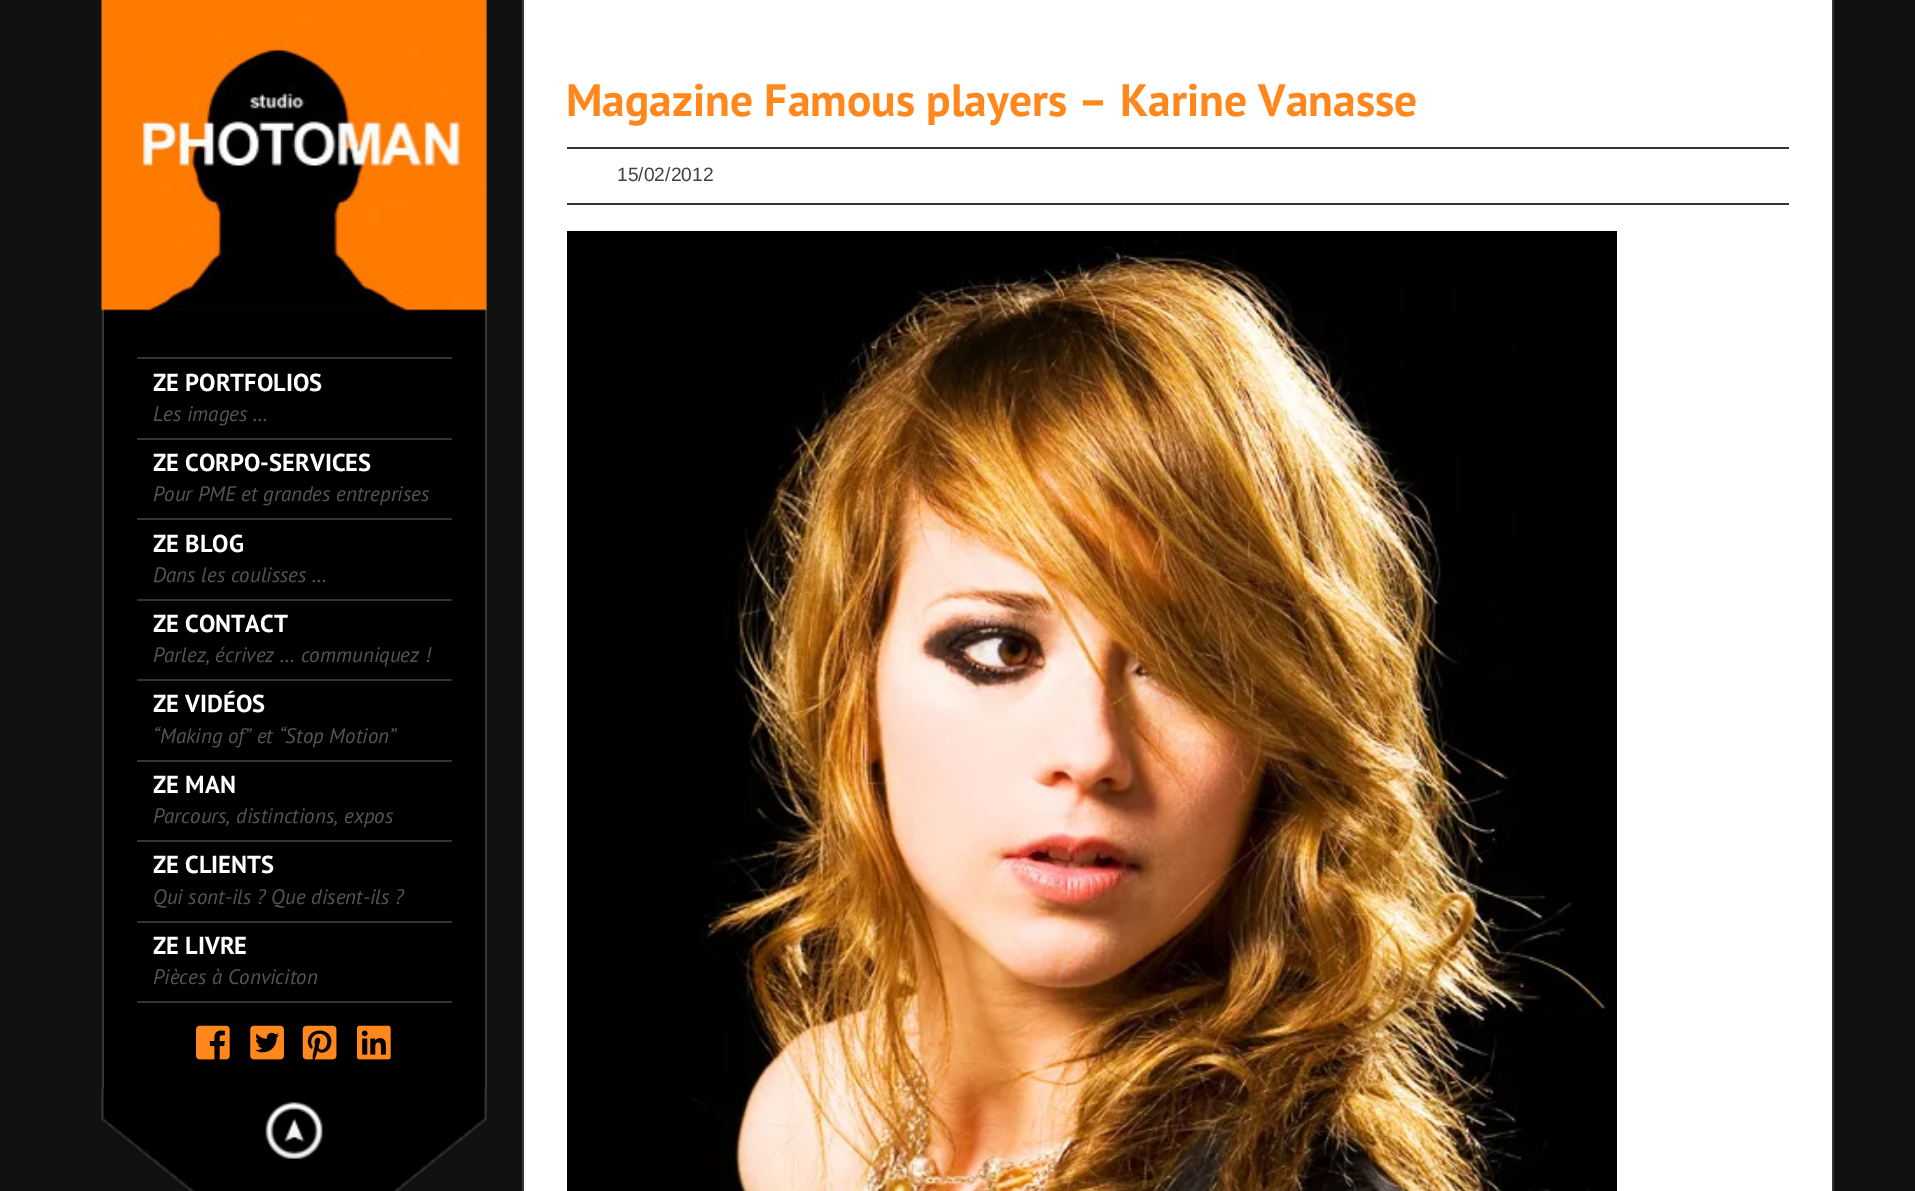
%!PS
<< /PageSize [1915 1191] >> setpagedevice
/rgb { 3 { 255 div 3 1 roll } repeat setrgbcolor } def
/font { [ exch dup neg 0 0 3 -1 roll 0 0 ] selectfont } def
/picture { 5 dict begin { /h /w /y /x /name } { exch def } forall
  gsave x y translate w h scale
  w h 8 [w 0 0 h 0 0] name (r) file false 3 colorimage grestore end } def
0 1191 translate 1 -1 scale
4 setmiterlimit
17 17 17 rgb
0 0 1915 1191 rectfill
[
  [524 0 1308 1191 255 255 255]
  [1832 0 2 1191 57 56 54]
  [522 0 2 1191 57 56 54]
  [567 147 1222 2 52 52 52]
  [567 203 1222 2 52 52 52]
] { aload pop rgb rectfill } forall
(img/1.rgb) 567 231 1050 960 picture
(img/7.rgb) 101 1088 386 103 picture
[
  [104 309 381 780 0 0 0]
  [485 0 2 1089 57 56 54]
  [102 309 2 780 57 56 54]
] { aload pop rgb rectfill } forall
(img/2.rgb) 101 0 386 311 picture
[
  [137 357 315 2 52 52 52]
  [137 438 315 2 52 52 52]
  [137 518 315 2 52 52 52]
  [137 599 315 2 52 52 52]
  [137 679 315 2 52 52 52]
  [137 760 315 2 52 52 52]
  [137 840 315 2 52 52 52]
  [137 921 315 2 52 52 52]
  [137 1001 315 2 52 52 52]
] { aload pop rgb rectfill } forall
(img/3.rgb) 196 1025 34 35 picture
(img/4.rgb) 250 1025 34 35 picture
(img/5.rgb) 302 1025 35 35 picture
(img/6.rgb) 357 1025 34 35 picture
(img/8.rgb) 265 1102 58 58 picture
/PTSans-Bold 45.5 font
255 135 28 rgb
566 116 moveto (Magazine Famous players – Karine Vanasse) show
/LiberationSans-Regular 19.25 font
68 68 68 rgb
617 181 moveto (15/02/2012) show
/PTSans-Bold 24.5 font
255 255 255 rgb
153 391 moveto (ZE PORTFOLIOS) show
/PTSans-Italic 21 font
85 85 85 rgb
153 421 moveto (Les images …) show
/PTSans-Bold 24.5 font
255 255 255 rgb
153 471 moveto (ZE CORPO-SERVICES) show
/PTSans-Italic 21 font
85 85 85 rgb
153 501 moveto (Pour PME et grandes entreprises) show
/PTSans-Bold 24.5 font
255 255 255 rgb
153 552 moveto (ZE BLOG) show
/PTSans-Italic 21 font
85 85 85 rgb
153 582 moveto (Dans les coulisses …) show
/PTSans-Bold 24.5 font
255 255 255 rgb
153 632 moveto (ZE CONTACT) show
/PTSans-Italic 21 font
85 85 85 rgb
153 662 moveto (Parlez, écrivez … communiquez !) show
/PTSans-Bold 24.5 font
255 255 255 rgb
153 712 moveto (ZE VIDÉOS) show
/PTSans-Italic 21 font
85 85 85 rgb
153 743 moveto (“Making of” et “Stop Motion”) show
/PTSans-Bold 24.5 font
255 255 255 rgb
153 793 moveto (ZE MAN) show
/PTSans-Italic 21 font
85 85 85 rgb
153 823 moveto (Parcours, distinctions, expos) show
/PTSans-Bold 24.5 font
255 255 255 rgb
153 873 moveto (ZE CLIENTS) show
/PTSans-Italic 21 font
85 85 85 rgb
153 904 moveto (Qui sont-ils ? Que disent-ils ?) show
/PTSans-Bold 24.5 font
255 255 255 rgb
153 954 moveto (ZE LIVRE) show
/PTSans-Italic 21 font
85 85 85 rgb
153 984 moveto (Pièces à Conviciton) show
showpage
